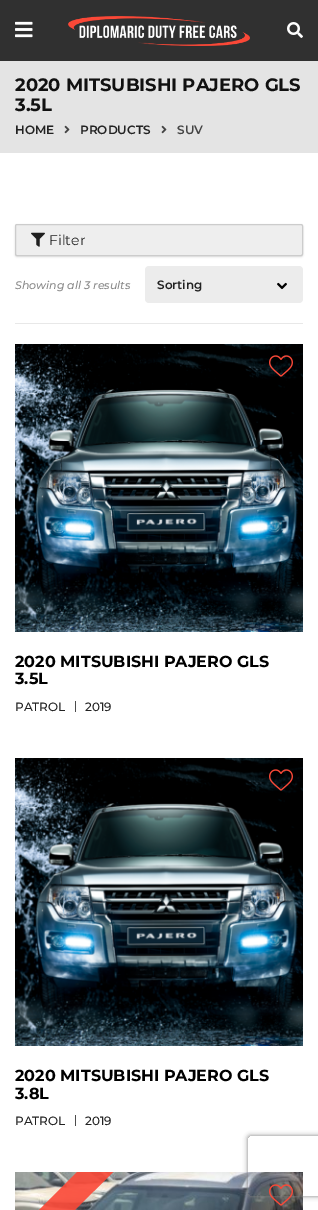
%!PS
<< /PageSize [318 1210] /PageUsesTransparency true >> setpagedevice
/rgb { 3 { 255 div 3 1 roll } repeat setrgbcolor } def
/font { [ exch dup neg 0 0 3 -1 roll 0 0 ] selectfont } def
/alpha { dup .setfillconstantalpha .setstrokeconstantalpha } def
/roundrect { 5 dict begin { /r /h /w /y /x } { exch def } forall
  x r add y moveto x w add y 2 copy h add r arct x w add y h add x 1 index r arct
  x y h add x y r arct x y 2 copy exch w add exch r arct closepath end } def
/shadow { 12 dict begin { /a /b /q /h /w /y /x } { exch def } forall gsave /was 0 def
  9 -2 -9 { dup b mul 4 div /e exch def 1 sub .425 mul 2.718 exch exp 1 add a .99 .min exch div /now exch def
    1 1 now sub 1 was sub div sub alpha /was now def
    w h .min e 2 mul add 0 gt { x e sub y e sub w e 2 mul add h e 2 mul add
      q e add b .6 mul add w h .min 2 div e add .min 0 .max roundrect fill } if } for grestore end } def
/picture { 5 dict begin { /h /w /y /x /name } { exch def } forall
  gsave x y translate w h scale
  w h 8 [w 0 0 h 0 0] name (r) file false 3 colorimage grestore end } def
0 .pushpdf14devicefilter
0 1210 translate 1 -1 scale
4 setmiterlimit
255 255 255 rgb
0 0 318 1210 rectfill
48 48 48 rgb
0 0 318 61 rectfill
(img/1.rgb) 15 21 18 17 picture
(img/2.rgb) 68 16 182 30 picture
(img/3.rgb) 287 22 16 16 picture
228 228 228 rgb
0 61 318 92 rectfill
(img/4.rgb) 64 125 6 9 picture
(img/4.rgb) 161 125 6 9 picture
0 0 0 rgb
15 225 288 32 2 1 0.14 shadow
238 238 238 rgb
15.5 224.5 287 31 1.5 roundrect gsave fill grestore
204 204 204 rgb
stroke
(img/5.rgb) 31 232 14 15 picture
232 232 232 rgb
15 323 288 1 rectfill
236 236 236 rgb
145 266 158 37 4 roundrect fill
(img/6.rgb) 277 282 10 8 picture
(img/7.rgb) 15 344 288 288 picture
(img/8.rgb) 269 355 24 22 picture
76 76 76 rgb
75 701 1 11 rectfill
(img/9.rgb) 15 758 288 288 picture
(img/10.rgb) 269 769 24 22 picture
75 1115 1 11 rectfill
(img/11.rgb) 15 1172 288 38 picture
gsave
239 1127 moveto 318 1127 lineto 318 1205 lineto 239 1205 lineto closepath 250 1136 moveto 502 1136 lineto 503 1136 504 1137 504 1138 curveto 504 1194 lineto 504 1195 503 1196 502 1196 curveto 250 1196 lineto 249 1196 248 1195 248 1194 curveto 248 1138 lineto 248 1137 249 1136 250 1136 curveto closepath eoclip newpath
128 128 128 rgb
248 1136 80 60 2 2.5 1 shadow
grestore
(img/12.rgb) 269 1184 24 22 picture
gsave
15 1172 288 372 rectclip
0.9 alpha
251 72 55 rgb
-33 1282 moveto 179 1070 lineto 197 1088 lineto -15 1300 lineto closepath fill
grestore
/Montserrat-Bold 18 font
17 17 17 rgb
15 91 moveto (2020 MITSUBISHI PAJERO GLS) show
15 111 moveto (3.5L) show
/Montserrat-SemiBold 12 font
34 34 34 rgb
15 134 moveto (HOME) show
80 134 moveto (PRODUCTS) show
68 68 68 rgb
177 134 moveto (SUV) show
/Montserrat-Regular 14 font
34 34 34 rgb
49 245 moveto (Filter) show
/Montserrat-MediumItalic 11 font
136 136 136 rgb
15 289 moveto (Showing all 3 results) show
/Montserrat-SemiBold 12 font
34 34 34 rgb
157 289 moveto (Sorting) show
/Montserrat-Bold 16 font
0 0 0 rgb
15 667 moveto (2020 MITSUBISHI PAJERO GLS) show
15 684 moveto (3.5L) show
/Montserrat-Medium 12 font
34 34 34 rgb
15 711 moveto (PATROL) show
85 711 moveto (2019) show
/Montserrat-Bold 16 font
0 0 0 rgb
15 1081 moveto (2020 MITSUBISHI PAJERO GLS) show
15 1099 moveto (3.8L) show
/Montserrat-Medium 12 font
34 34 34 rgb
15 1125 moveto (PATROL) show
85 1125 moveto (2019) show
.poppdf14devicefilter showpage
